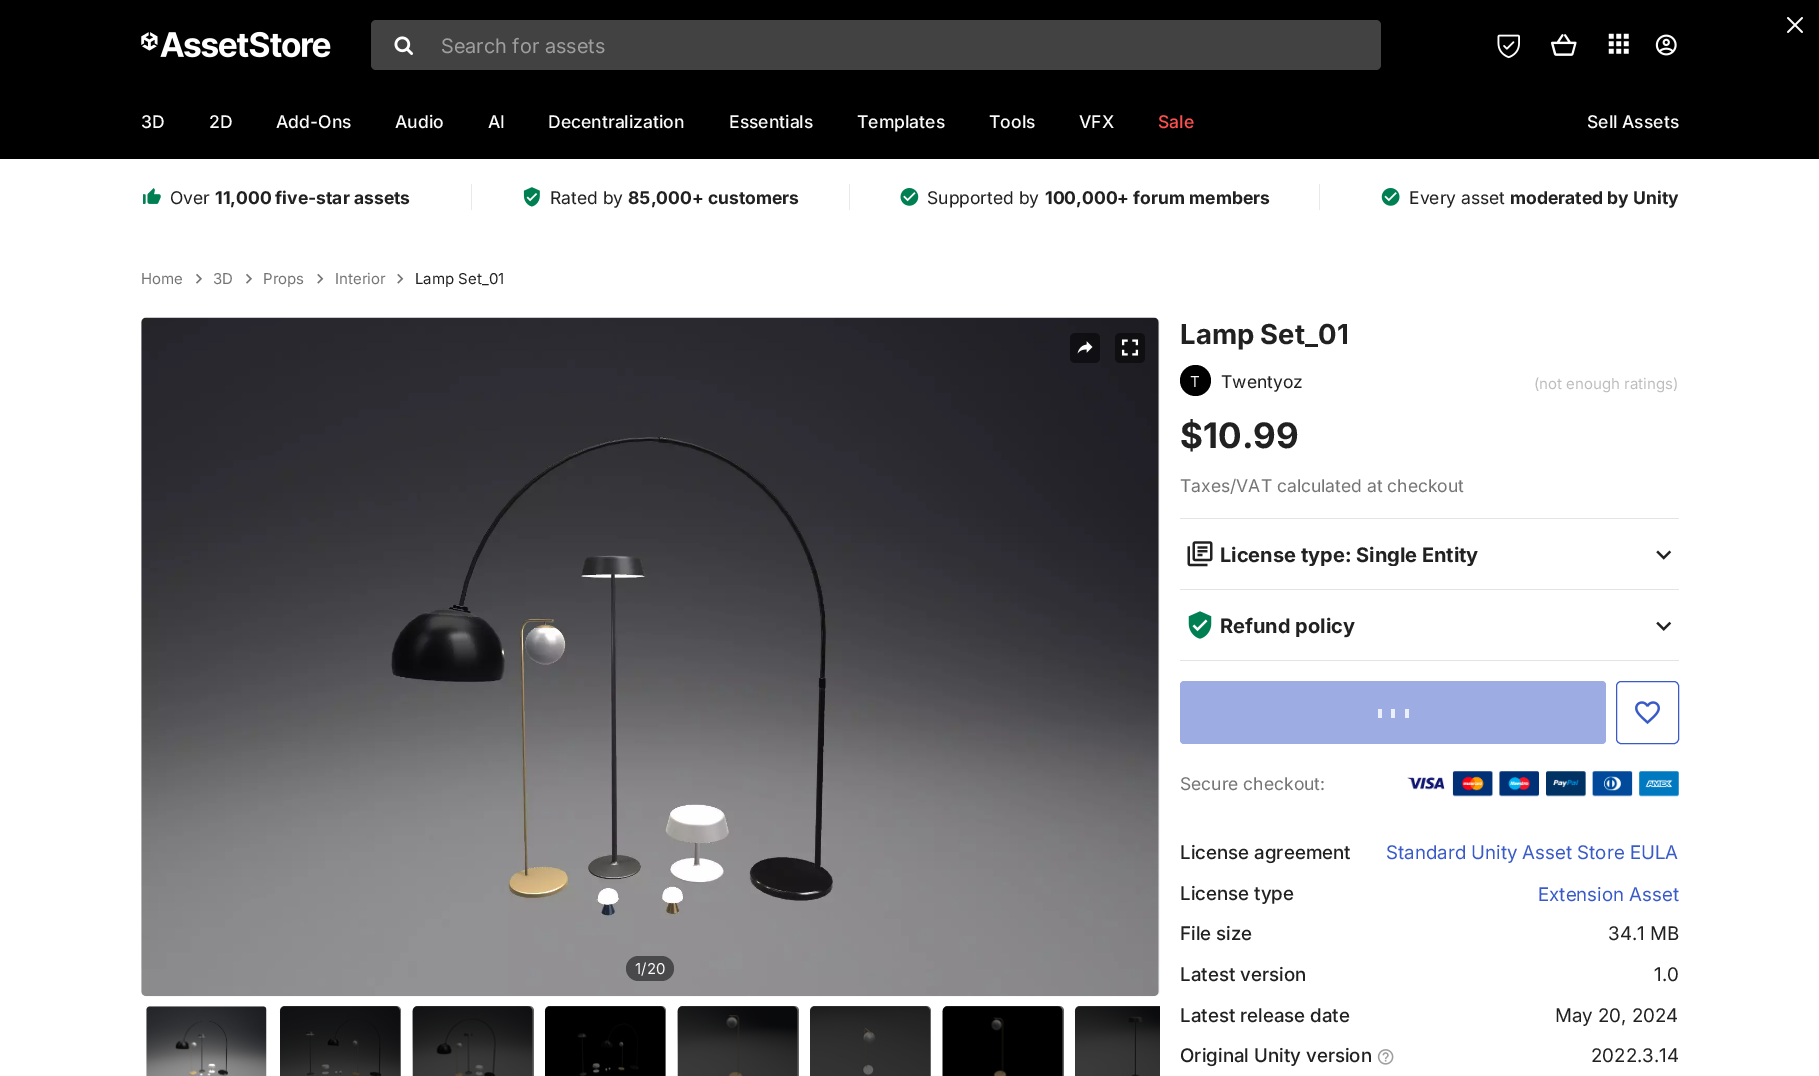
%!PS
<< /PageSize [1819 1076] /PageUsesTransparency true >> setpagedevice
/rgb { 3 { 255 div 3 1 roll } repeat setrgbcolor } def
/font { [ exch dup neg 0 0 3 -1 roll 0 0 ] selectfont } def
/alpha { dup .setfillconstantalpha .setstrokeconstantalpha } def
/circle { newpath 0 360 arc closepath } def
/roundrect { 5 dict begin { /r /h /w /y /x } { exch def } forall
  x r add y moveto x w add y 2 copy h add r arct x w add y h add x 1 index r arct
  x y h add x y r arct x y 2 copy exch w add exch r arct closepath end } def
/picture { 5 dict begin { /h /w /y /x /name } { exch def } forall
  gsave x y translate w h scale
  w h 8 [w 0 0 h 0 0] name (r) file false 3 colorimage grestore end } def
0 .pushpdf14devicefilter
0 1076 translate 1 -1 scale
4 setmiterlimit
255 255 255 rgb
0 0 1819 1076 rectfill
0 0 0 rgb
0 0 1819 159 rectfill
(img/1.rgb) 1787 17 16 16 picture
(img/2.rgb) 141 31 190 27 picture
66 66 66 rgb
371 20 1010 50 5 roundrect fill
(img/3.rgb) 394 36 19 19 picture
(img/4.rgb) 1497 34 23 25 picture
(img/5.rgb) 1551 34 26 22 picture
(img/6.rgb) 1608 33 21 21 picture
(img/7.rgb) 1655 34 22 22 picture
(img/8.rgb) 143 188 18 16 picture
233 233 233 rgb
849 184 1 26 rectfill
471 184 1 26 rectfill
(img/9.rgb) 523 187 17 20 picture
1319 184 1 26 rectfill
(img/10.rgb) 900 188 19 18 picture
(img/11.rgb) 1381 188 19 18 picture
(img/12.rgb) 196 273 6 11 picture
(img/12.rgb) 246 273 6 11 picture
(img/13.rgb) 317 273 7 11 picture
(img/13.rgb) 397 273 7 11 picture
245 245 245 rgb
141 318 1019 678 5 roundrect fill
(img/16.rgb) 141 317 1018 680 picture
0.5 alpha
0 0 0 rgb
1070 333 30 30 5 roundrect fill
1 alpha
(img/14.rgb) 1077 341 16 13 picture
15 15 18 rgb
1115 333 30 30 5 roundrect fill
(img/15.rgb) 1121 339 18 17 picture
0.5 alpha
0 0 0 rgb
626 956 48 25 12.5 roundrect fill
1 alpha
(img/17.rgb) 146 1006 121 70 picture
255 255 255 rgb
145.5 1005.5 122 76 4.5 roundrect stroke
(img/18.rgb) 279 1006 122 70 picture
0.6 alpha
0 0 0 rgb
285 1006 moveto 396 1006 lineto 399 1006 401 1008 401 1011 curveto 401 1076 lineto 280 1076 lineto 280 1011 lineto 280 1008 282 1006 285 1006 curveto closepath fill
1 alpha
(img/19.rgb) 412 1006 121 70 picture
0.6 alpha
418 1006 moveto 529 1006 lineto 532 1006 534 1008 534 1011 curveto 534 1076 lineto 413 1076 lineto 413 1011 lineto 413 1008 415 1006 418 1006 curveto closepath fill
1 alpha
(img/20.rgb) 544 1006 122 70 picture
0.6 alpha
550 1006 moveto 661 1006 lineto 664 1006 666 1008 666 1011 curveto 666 1076 lineto 545 1076 lineto 545 1011 lineto 545 1008 547 1006 550 1006 curveto closepath fill
1 alpha
(img/21.rgb) 677 1006 121 70 picture
0.6 alpha
683 1006 moveto 794 1006 lineto 797 1006 799 1008 799 1011 curveto 799 1076 lineto 678 1076 lineto 678 1011 lineto 678 1008 680 1006 683 1006 curveto closepath fill
1 alpha
(img/22.rgb) 809 1006 122 70 picture
0.6 alpha
815 1006 moveto 926 1006 lineto 929 1006 931 1008 931 1011 curveto 931 1076 lineto 810 1076 lineto 810 1011 lineto 810 1008 812 1006 815 1006 curveto closepath fill
1 alpha
(img/23.rgb) 942 1006 121 70 picture
0.6 alpha
948 1006 moveto 1059 1006 lineto 1062 1006 1064 1008 1064 1011 curveto 1064 1076 lineto 943 1076 lineto 943 1011 lineto 943 1008 945 1006 948 1006 curveto closepath fill
1 alpha
(img/24.rgb) 1074 1006 86 70 picture
0.6 alpha
1080 1006 moveto 1160 1006 lineto 1160 1076 lineto 1075 1076 lineto 1075 1011 lineto 1075 1008 1077 1006 1080 1006 curveto closepath fill
1 alpha
1195.5 380.5 15.5 circle fill
228 228 228 rgb
1180 518 499 1 rectfill
(img/25.rgb) 1187 541 26 26 picture
(img/26.rgb) 1656 550 16 10 picture
1180 589 499 1 rectfill
1180 660 499 1 rectfill
(img/27.rgb) 1188 611 24 28 picture
(img/28.rgb) 1656 621 16 10 picture
157 173 227 rgb
1180 681 426 63 4 roundrect fill
[
  [1378 709 4 9 235 239 249]
  [1391 709 4 9 235 239 249]
  [1405 709 4 9 235 239 249]
] { aload pop rgb rectfill } forall
58 91 199 rgb
1616.5 681.5 62 62 4.5 roundrect stroke
(img/29.rgb) 1635 701 25 24 picture
(img/30.rgb) 1407 771 272 26 picture
(img/31.rgb) 1377 1049 17 16 picture
/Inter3-Regular 20 font
158 158 158 rgb
441 53 moveto (Search for assets) show
/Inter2-Medium 17.5 font
250 250 250 rgb
[
  [(3D) 141 128]
  [(2D) 209 128]
  [(Add-Ons) 276 128]
  [(Audio) 395 128]
  [(AI) 488 128]
  [(Decentralization) 548 128]
  [(Essentials) 729 128]
  [(Templates) 857 128]
  [(Tools) 989 128]
  [(VFX) 1079 128]
] { aload pop moveto show } forall
255 80 80 rgb
1158 128 moveto (Sale) show
250 250 250 rgb
1587 128 moveto (Sell Assets) show
/Inter-Regular 17.5 font
33 33 33 rgb
170 204 moveto (Over) show
/Inter-Bold 17.5 font
215 204 moveto (11,000 five-star assets) show
/Inter-Regular 17.5 font
550 204 moveto (Rated by) show
/Inter-Bold 17.5 font
628 204 moveto (85,000+ customers) show
/Inter-Regular 17.5 font
927 204 moveto (Supported by) show
/Inter-Bold 17.5 font
1045 204 moveto (100,000+ forum members) show
/Inter-Regular 17.5 font
1409 204 moveto (Every asset) show
/Inter-Bold 17.5 font
1510 204 moveto (moderated by Unity) show
/Inter-Regular 15 font
117 117 117 rgb
[
  [(Home) 141 284]
  [(3D) 213 284]
  [(Props) 263 284]
  [(Interior) 335 284]
] { aload pop moveto show } forall
33 33 33 rgb
415 284 moveto (Lamp Set_01) show
250 250 250 rgb
635 974 moveto (1/20) show
/Inter-Bold 27.5 font
33 33 33 rgb
1180 344 moveto (Lamp Set_01) show
/Inter-Regular 15 font
250 250 250 rgb
1190 387 moveto (T) show
/Inter-Regular 17.5 font
33 33 33 rgb
1221 388 moveto (Twentyoz) show
/Inter-Regular 15 font
189 189 189 rgb
1534 389 moveto (\(not enough ratings\)) show
/Inter-Bold 35 font
33 33 33 rgb
1180 448 moveto ($10.99) show
/Inter-Regular 17.5 font
117 117 117 rgb
1180 492 moveto (Taxes/VAT calculated at checkout) show
gsave
1220 541 429 25 rectclip
/Inter-Bold 20 font
33 33 33 rgb
1220 562 moveto (License type: Single Entity) show
grestore
/Inter-Bold 20 font
33 33 33 rgb
1220 633 moveto (Refund policy) show
/Inter-Regular 17.5 font
117 117 117 rgb
1180 790 moveto (Secure checkout:) show
/Inter-Medium 18.75 font
33 33 33 rgb
1180 859 moveto (License agreement) show
/Inter2-Regular 18.75 font
58 91 199 rgb
1386 859 moveto (Standard Unity Asset Store EULA) show
/Inter-Medium 18.75 font
33 33 33 rgb
1180 900 moveto (License type) show
/Inter2-Regular 18.75 font
58 91 199 rgb
1538 901 moveto (Extension Asset) show
/Inter-Medium 18.75 font
33 33 33 rgb
1180 940 moveto (File size) show
/Inter2-Regular 18.75 font
1608 940 moveto (34.1 MB) show
/Inter-Medium 18.75 font
1180 981 moveto (Latest version) show
/Inter2-Regular 18.75 font
1654 981 moveto (1.0) show
/Inter-Medium 18.75 font
1180 1022 moveto (Latest release date) show
/Inter2-Regular 18.75 font
1555 1022 moveto (May 20, 2024) show
/Inter-Medium 18.75 font
1180 1062 moveto (Original Unity version) show
/Inter2-Regular 18.75 font
1591 1062 moveto (2022.3.14) show
.poppdf14devicefilter showpage
